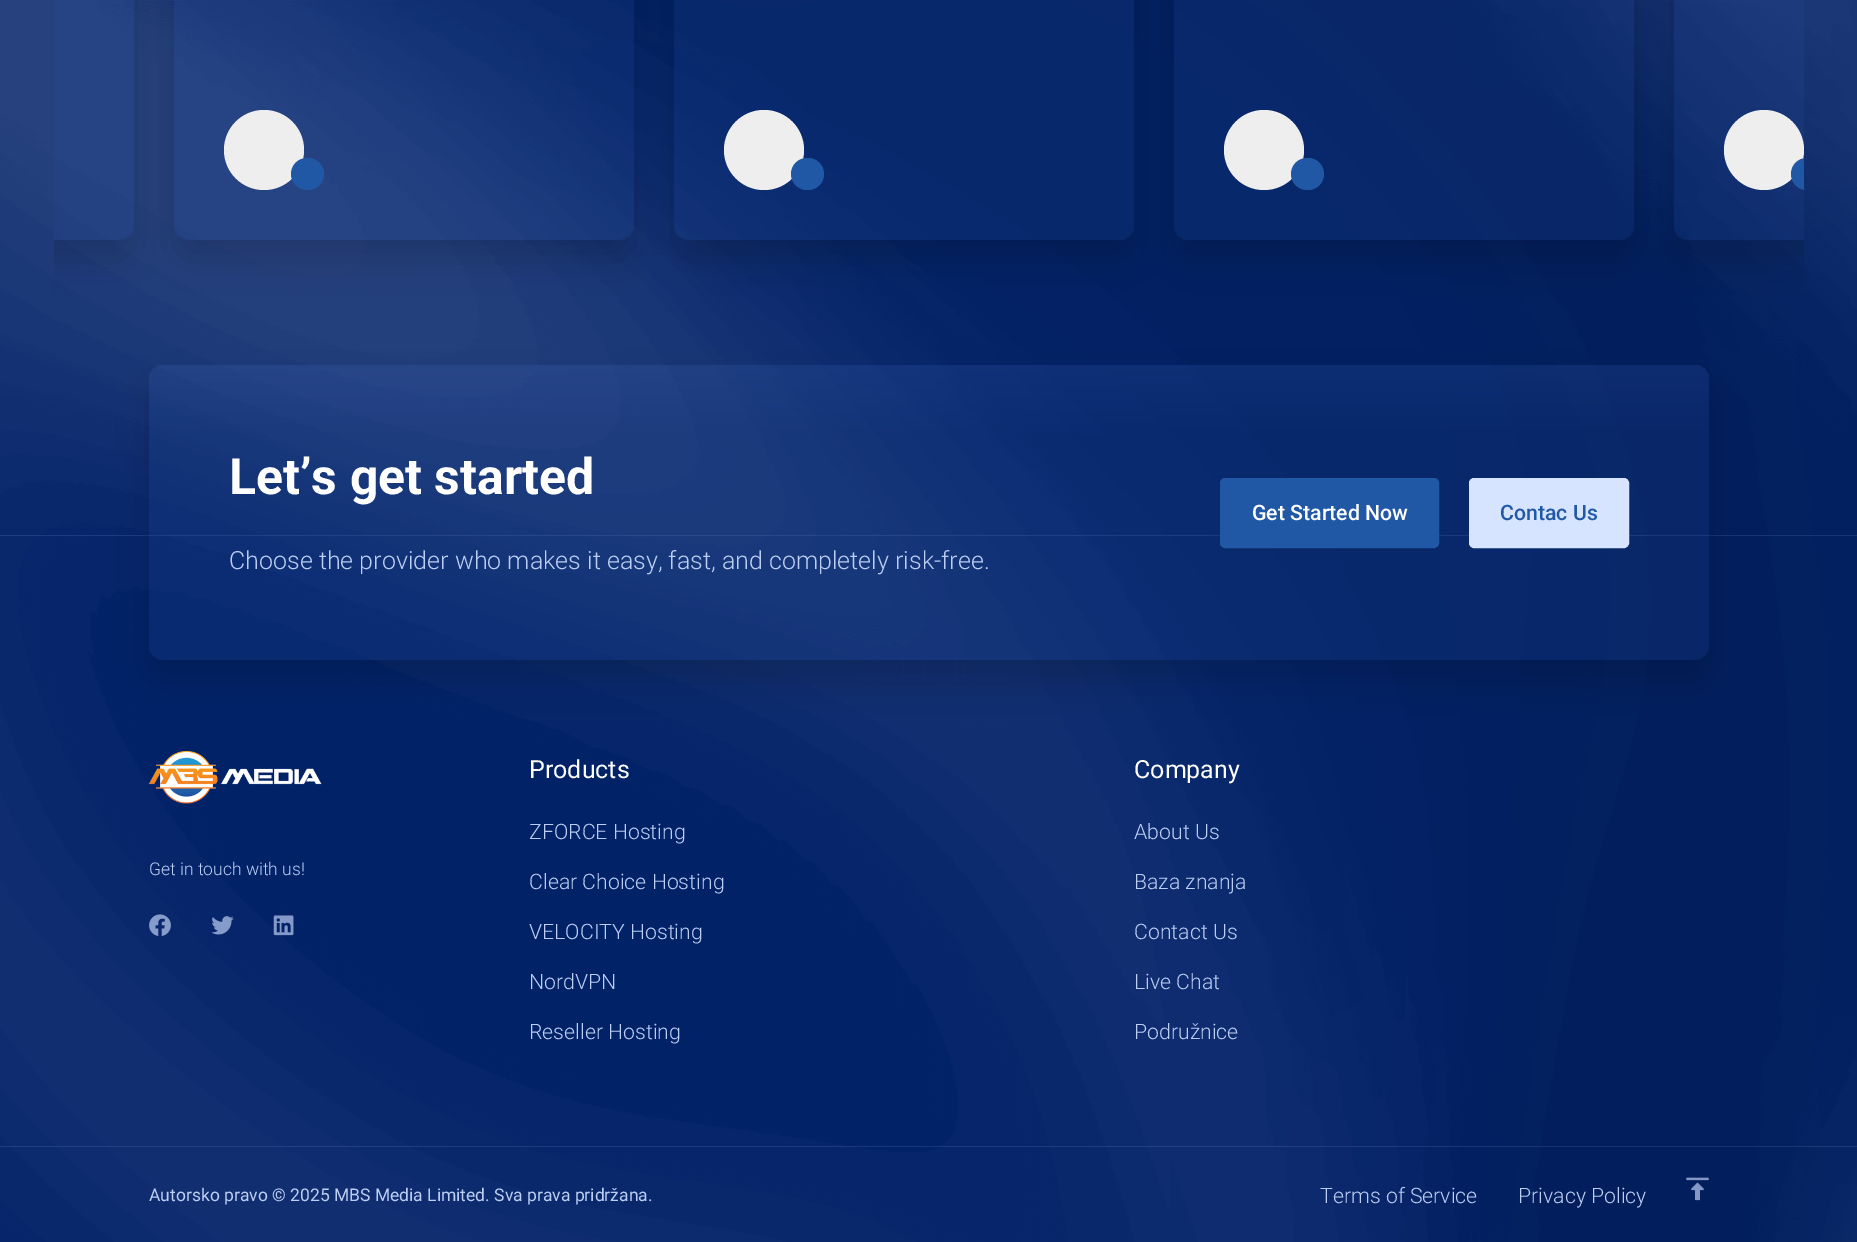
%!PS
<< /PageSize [1857 1242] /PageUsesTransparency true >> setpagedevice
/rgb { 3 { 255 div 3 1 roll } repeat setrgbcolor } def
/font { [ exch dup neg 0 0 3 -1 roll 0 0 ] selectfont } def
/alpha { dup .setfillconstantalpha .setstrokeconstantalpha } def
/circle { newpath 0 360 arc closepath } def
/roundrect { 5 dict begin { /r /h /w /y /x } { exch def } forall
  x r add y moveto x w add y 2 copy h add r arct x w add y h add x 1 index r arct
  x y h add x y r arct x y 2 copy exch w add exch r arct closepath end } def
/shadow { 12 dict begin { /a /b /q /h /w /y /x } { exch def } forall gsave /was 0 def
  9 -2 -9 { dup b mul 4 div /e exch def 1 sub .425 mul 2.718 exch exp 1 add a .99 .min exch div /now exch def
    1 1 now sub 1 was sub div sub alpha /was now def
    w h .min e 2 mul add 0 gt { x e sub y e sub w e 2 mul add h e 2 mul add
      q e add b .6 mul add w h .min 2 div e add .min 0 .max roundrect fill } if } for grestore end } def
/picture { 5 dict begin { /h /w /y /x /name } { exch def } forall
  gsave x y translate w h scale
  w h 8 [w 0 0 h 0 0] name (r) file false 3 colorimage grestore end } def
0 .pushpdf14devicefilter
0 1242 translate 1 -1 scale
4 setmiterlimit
2 34 104 rgb
0 0 1857 1242 rectfill
(img/1.rgb) 0 0 1857 1242 picture
gsave
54 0 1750 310 rectclip
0 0 moveto 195 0 lineto 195 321 lineto 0 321 lineto closepath -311 -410 moveto 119 -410 lineto 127.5 -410 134 -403.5 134 -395 curveto 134 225 lineto 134 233.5 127.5 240 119 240 curveto -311 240 lineto -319.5 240 -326 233.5 -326 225 curveto -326 -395 lineto -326 -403.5 -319.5 -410 -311 -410 curveto closepath eoclip newpath
0 0 0 rgb
-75 -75 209 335 15 20 0.16 shadow
grestore
0.16 alpha
gsave 54 -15 moveto 119 -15 lineto 127.5 -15 134 -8.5 134 0 curveto 134 225 lineto 134 233.5 127.5 240 119 240 curveto 54 240 lineto closepath clip newpath
<< /ShadingType 2 /ColorSpace /DeviceRGB /Coords [-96 -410 -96 240] /Extend [true true] /Function << /FunctionType 3 /Domain [0 1] /Functions [<< /FunctionType 2 /Domain [0 1] /C0 [0.294 0.471 0.824] /C1 [0.161 0.322 0.639] /N 1 >> << /FunctionType 2 /Domain [0 1] /C0 [0.161 0.322 0.639] /C1 [0.161 0.322 0.639] /N 1 >>] /Bounds [0.24] /Encode [0 1 0 1] >> >> shfill grestore
gsave
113 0 moveto 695 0 lineto 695 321 lineto 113 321 lineto closepath 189 -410 moveto 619 -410 lineto 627.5 -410 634 -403.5 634 -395 curveto 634 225 lineto 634 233.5 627.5 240 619 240 curveto 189 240 lineto 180.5 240 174 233.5 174 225 curveto 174 -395 lineto 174 -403.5 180.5 -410 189 -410 curveto closepath eoclip newpath
1 alpha
0 0 0 rgb
174 -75 460 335 15 20 0.16 shadow
grestore
gsave 174 -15 460 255 15 roundrect clip newpath
<< /ShadingType 2 /ColorSpace /DeviceRGB /Coords [404 -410 404 240] /Extend [true true] /Function << /FunctionType 3 /Domain [0 1] /Functions [<< /FunctionType 2 /Domain [0 1] /C0 [0.294 0.471 0.824] /C1 [0.161 0.322 0.639] /N 1 >> << /FunctionType 2 /Domain [0 1] /C0 [0.161 0.322 0.639] /C1 [0.161 0.322 0.639] /N 1 >>] /Bounds [0.24] /Encode [0 1 0 1] >> >> shfill grestore
1 alpha
238 238 238 rgb
264 150 40 circle fill
32 88 165 rgb
291 158 33 32 16 roundrect fill
gsave
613 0 moveto 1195 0 lineto 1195 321 lineto 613 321 lineto closepath 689 -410 moveto 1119 -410 lineto 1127.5 -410 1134 -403.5 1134 -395 curveto 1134 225 lineto 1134 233.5 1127.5 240 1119 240 curveto 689 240 lineto 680.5 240 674 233.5 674 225 curveto 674 -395 lineto 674 -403.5 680.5 -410 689 -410 curveto closepath eoclip newpath
0 0 0 rgb
674 -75 460 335 15 20 0.16 shadow
grestore
0.16 alpha
gsave 674 -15 460 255 15 roundrect clip newpath
<< /ShadingType 2 /ColorSpace /DeviceRGB /Coords [904 -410 904 240] /Extend [true true] /Function << /FunctionType 3 /Domain [0 1] /Functions [<< /FunctionType 2 /Domain [0 1] /C0 [0.294 0.471 0.824] /C1 [0.161 0.322 0.639] /N 1 >> << /FunctionType 2 /Domain [0 1] /C0 [0.161 0.322 0.639] /C1 [0.161 0.322 0.639] /N 1 >>] /Bounds [0.24] /Encode [0 1 0 1] >> >> shfill grestore
1 alpha
238 238 238 rgb
764 150 40 circle fill
32 88 165 rgb
791 158 33 32 16 roundrect fill
gsave
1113 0 moveto 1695 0 lineto 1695 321 lineto 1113 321 lineto closepath 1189 -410 moveto 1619 -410 lineto 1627.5 -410 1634 -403.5 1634 -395 curveto 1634 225 lineto 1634 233.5 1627.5 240 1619 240 curveto 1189 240 lineto 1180.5 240 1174 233.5 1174 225 curveto 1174 -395 lineto 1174 -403.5 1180.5 -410 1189 -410 curveto closepath eoclip newpath
0 0 0 rgb
1174 -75 460 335 15 20 0.16 shadow
grestore
0.16 alpha
gsave 1174 -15 460 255 15 roundrect clip newpath
<< /ShadingType 2 /ColorSpace /DeviceRGB /Coords [1404 -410 1404 240] /Extend [true true] /Function << /FunctionType 3 /Domain [0 1] /Functions [<< /FunctionType 2 /Domain [0 1] /C0 [0.294 0.471 0.824] /C1 [0.161 0.322 0.639] /N 1 >> << /FunctionType 2 /Domain [0 1] /C0 [0.161 0.322 0.639] /C1 [0.161 0.322 0.639] /N 1 >>] /Bounds [0.24] /Encode [0 1 0 1] >> >> shfill grestore
1 alpha
238 238 238 rgb
1264 150 40 circle fill
32 88 165 rgb
1291 158 33 32 16 roundrect fill
gsave
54 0 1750 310 rectclip
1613 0 moveto 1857 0 lineto 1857 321 lineto 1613 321 lineto closepath 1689 -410 moveto 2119 -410 lineto 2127.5 -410 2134 -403.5 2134 -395 curveto 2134 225 lineto 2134 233.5 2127.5 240 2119 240 curveto 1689 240 lineto 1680.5 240 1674 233.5 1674 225 curveto 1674 -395 lineto 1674 -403.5 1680.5 -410 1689 -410 curveto closepath eoclip newpath
0 0 0 rgb
1674 -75 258 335 15 20 0.16 shadow
grestore
0.16 alpha
gsave 1689 -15 moveto 1804 -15 lineto 1804 240 lineto 1689 240 lineto 1680.5 240 1674 233.5 1674 225 curveto 1674 0 lineto 1674 -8.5 1680.5 -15 1689 -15 curveto closepath clip newpath
<< /ShadingType 2 /ColorSpace /DeviceRGB /Coords [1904 -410 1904 240] /Extend [true true] /Function << /FunctionType 3 /Domain [0 1] /Functions [<< /FunctionType 2 /Domain [0 1] /C0 [0.294 0.471 0.824] /C1 [0.161 0.322 0.639] /N 1 >> << /FunctionType 2 /Domain [0 1] /C0 [0.161 0.322 0.639] /C1 [0.161 0.322 0.639] /N 1 >>] /Bounds [0.24] /Encode [0 1 0 1] >> >> shfill grestore
1 alpha
238 238 238 rgb
1764 150 40 circle fill
32 88 165 rgb
1807 158 moveto 1804 158 lineto 1804 190 lineto 1807 190 lineto 1798 190 1791 183 1791 174 curveto 1791 165 1798 158 1807 158 curveto closepath fill
0.12 alpha
178 204 255 rgb
0 535 1857 1 rectfill
gsave
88 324 moveto 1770 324 lineto 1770 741 lineto 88 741 lineto closepath 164 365 moveto 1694 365 lineto 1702.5 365 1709 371.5 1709 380 curveto 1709 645 lineto 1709 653.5 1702.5 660 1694 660 curveto 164 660 lineto 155.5 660 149 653.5 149 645 curveto 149 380 lineto 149 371.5 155.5 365 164 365 curveto closepath eoclip newpath
1 alpha
0 0 0 rgb
149 385 1560 295 15 20 0.16 shadow
grestore
0.16 alpha
gsave 149 365 1560 295 15 roundrect clip newpath
<< /ShadingType 2 /ColorSpace /DeviceRGB /Coords [929 365 929 660] /Extend [true true] /Function << /FunctionType 3 /Domain [0 1] /Functions [<< /FunctionType 2 /Domain [0 1] /C0 [0.294 0.471 0.824] /C1 [0.161 0.322 0.639] /N 1 >> << /FunctionType 2 /Domain [0 1] /C0 [0.161 0.322 0.639] /C1 [0.161 0.322 0.639] /N 1 >>] /Bounds [0.24] /Encode [0 1 0 1] >> >> shfill grestore
1 alpha
0 0 0 rgb
1220 479 219 70 5 4 0.08 shadow
1220 478 219 70 5 0.5 0.1 shadow
32 88 165 rgb
1220.5 478.5 218 69 4.5 roundrect gsave fill grestore
stroke
0 0 0 rgb
1469 478 160 70 5 0.5 0.1 shadow
214 228 255 rgb
1469.5 478.5 159 69 4.5 roundrect gsave fill grestore
stroke
(img/2.rgb) 148 751 174 53 picture
(img/3.rgb) 149 914 22 22 picture
(img/4.rgb) 211 916 23 19 picture
(img/5.rgb) 273 915 21 21 picture
0.12 alpha
178 204 255 rgb
0 1146 1857 1 rectfill
1 alpha
(img/6.rgb) 1686 1177 23 24 picture
/Roboto-Bold 50 font
255 255 255 rgb
229 494 moveto (Let’s get started) show
/Roboto-Light 25 font
188 206 243 rgb
229 569 moveto (Choose the provider who makes it easy, fast, and completely risk-free.) show
/Roboto-Medium 21.25 font
255 255 255 rgb
1252 520 moveto (Get Started Now) show
32 88 165 rgb
1500 520 moveto (Contac Us) show
/Roboto-Light 17.5 font
188 206 243 rgb
149 875 moveto (Get in touch with us!) show
/Roboto-Regular 25 font
255 255 255 rgb
529 778 moveto (Products) show
/Roboto-Light 21.25 font
188 206 243 rgb
[
  [(ZFORCE Hosting) 529 839]
  [(Clear Choice Hosting) 529 889]
  [(VELOCITY Hosting) 529 939]
  [(NordVPN) 529 989]
  [(Reseller Hosting) 529 1039]
] { aload pop moveto show } forall
/Roboto-Regular 25 font
255 255 255 rgb
1134 778 moveto (Company) show
/Roboto-Light 21.25 font
188 206 243 rgb
[
  [(About Us) 1134 839]
  [(Baza znanja) 1134 889]
  [(Contact Us) 1134 939]
  [(Live Chat) 1134 989]
  [(Podružnice) 1134 1039]
] { aload pop moveto show } forall
/Roboto-Regular 17.5 font
149 1201 moveto (Autorsko pravo © 2025 MBS Media Limited. Sva prava pridržana.) show
/Roboto-Light 21.25 font
1320 1203 moveto (Terms of Service) show
1518 1203 moveto (Privacy Policy) show
.poppdf14devicefilter showpage
